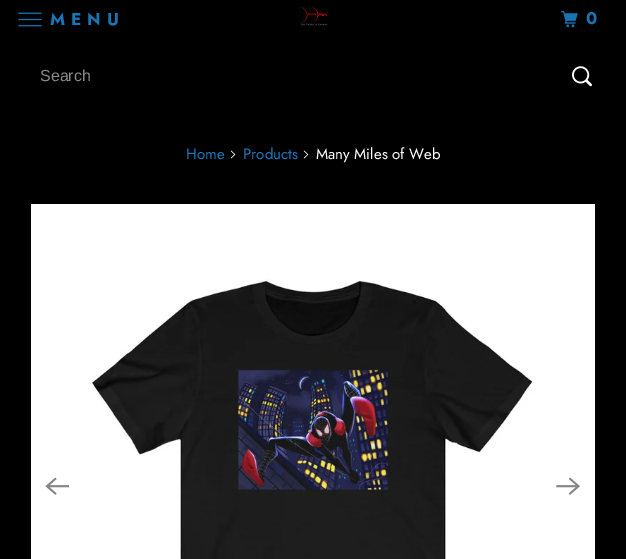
%!PS
<< /PageSize [626 559] >> setpagedevice
/rgb { 3 { 255 div 3 1 roll } repeat setrgbcolor } def
/font { [ exch dup neg 0 0 3 -1 roll 0 0 ] selectfont } def
/picture { 5 dict begin { /h /w /y /x /name } { exch def } forall
  gsave x y translate w h scale
  w h 8 [w 0 0 h 0 0] name (r) file false 3 colorimage grestore end } def
0 559 translate 1 -1 scale
4 setmiterlimit
0 0 0 rgb
0 0 626 559 rectfill
(img/1.rgb) 18 12 24 15 picture
(img/2.rgb) 299 7 29 19 picture
(img/3.rgb) 561 10 17 18 picture
(img/4.rgb) 572 66 20 21 picture
(img/5.rgb) 230 150 6 9 picture
(img/5.rgb) 303 150 6 9 picture
(img/6.rgb) 31 204 564 355 picture
(img/7.rgb) 45 477 25 18 picture
(img/8.rgb) 556 477 24 18 picture
/Jost-Bold 17 font
25 118 181 rgb
50 25 moveto 6 0 (MENU) ashow
586 24 moveto 6 0 (0) ashow
/LiberationSans-Regular 16 font
136 136 136 rgb
40 81 moveto (Search) show
/Jost-Regular 15 font
25 123 189 rgb
186 159 moveto (Home) show
243 159 moveto (Products) show
255 255 255 rgb
316 159 moveto (Many Miles of Web) show
showpage
